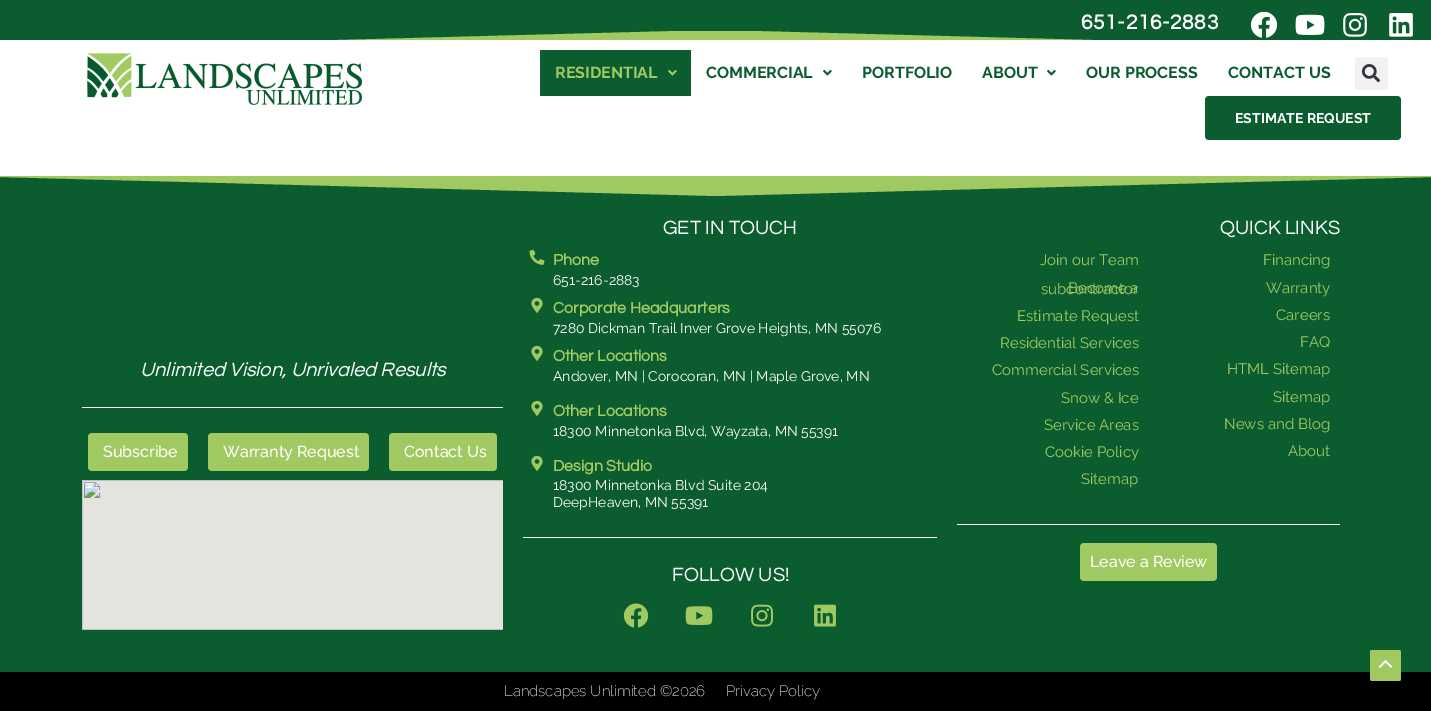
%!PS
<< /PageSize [1431 711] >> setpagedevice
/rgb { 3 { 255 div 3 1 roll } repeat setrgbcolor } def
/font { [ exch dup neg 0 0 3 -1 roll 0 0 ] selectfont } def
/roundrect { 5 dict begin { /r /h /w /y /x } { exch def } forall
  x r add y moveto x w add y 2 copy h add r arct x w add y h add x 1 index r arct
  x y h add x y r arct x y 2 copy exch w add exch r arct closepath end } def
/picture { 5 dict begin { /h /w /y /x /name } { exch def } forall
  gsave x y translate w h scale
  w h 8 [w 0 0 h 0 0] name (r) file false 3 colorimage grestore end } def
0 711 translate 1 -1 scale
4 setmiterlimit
255 255 255 rgb
0 0 1431 711 rectfill
11 93 48 rgb
0 0 1431 40 rectfill
gsave
0 31 1431 20 rectclip
161 201 97 rgb
715 30 moveto 1431 49 lineto 1431 50 lineto -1 50 lineto -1 49 lineto closepath fill
grestore
(img/1.rgb) 1250 11 28 27 picture
(img/2.rgb) 1295 14 30 21 picture
(img/3.rgb) 1343 13 24 24 picture
(img/4.rgb) 1389 13 24 24 picture
255 255 255 rgb
0 40 1431 10 rectfill
(img/5.rgb) 87 53 275 52 picture
11 93 48 rgb
540 50 151 46 rectfill
(img/6.rgb) 668 70 9 6 picture
(img/7.rgb) 823 70 9 6 picture
(img/7.rgb) 1047 70 9 6 picture
242 242 242 rgb
1355 57 33 33 3 roundrect fill
(img/8.rgb) 1361 64 19 19 picture
11 93 48 rgb
1205 96 196 44 4 roundrect fill
0 177 1431 495 rectfill
161 201 97 rgb
716 196 moveto 0 177 lineto 0 176 lineto 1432 176 lineto 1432 177 lineto closepath fill
255 255 255 rgb
82 407 421 1 rectfill
161 201 97 rgb
88 433 100 38 4 roundrect fill
208 433 161 38 4 roundrect fill
389 433 108 38 4 roundrect fill
(img/9.rgb) 82 480 421 150 picture
(img/10.rgb) 529 249 16 16 picture
(img/11.rgb) 531 297 12 16 picture
(img/11.rgb) 531 345 12 16 picture
(img/11.rgb) 531 400 12 16 picture
(img/11.rgb) 531 455 12 16 picture
255 255 255 rgb
523 537 414 1 rectfill
(img/12.rgb) 623 603 26 25 picture
(img/13.rgb) 685 606 28 19 picture
(img/14.rgb) 751 604 22 23 picture
(img/15.rgb) 814 604 22 23 picture
957 524 383 1 rectfill
161 201 97 rgb
1080 543 137 38 4 roundrect fill
0 0 0 rgb
0 672 1431 39 rectfill
161 201 97 rgb
1370 650 31 31 2 roundrect fill
(img/16.rgb) 1378 659 15 9 picture
/Questrial-Bold 21 font
255 255 255 rgb
1081 29 moveto 0.6 0 (651-216-2883) ashow
/Raleway-Bold 16 font
161 201 97 rgb
555 78 moveto (RESIDENTIAL) show
11 93 48 rgb
[
  [(COMMERCIAL) 706 78]
  [(PORTFOLIO) 862 78]
  [(ABOUT) 982 78]
  [(OUR PROCESS) 1086 78]
  [(CONTACT US) 1228 78]
] { aload pop moveto show } forall
/Raleway-Bold 14 font
255 255 255 rgb
1235 123 moveto (ESTIMATE REQUEST) show
/Questrial-Italic 20 font
140 376 moveto (Unlimited Vision, Unrivaled Results) show
/Raleway-Medium 16 font
[
  [(Subscribe) 103 457]
  [(Warranty Request) 223 457]
  [(Contact Us) 404 457]
] { aload pop moveto show } forall
/Questrial-Regular 20 font
663 234 moveto (GET IN TOUCH) show
/Questrial-Bold 16 font
161 201 97 rgb
553 265 moveto (Phone) show
/Raleway-Regular 14 font
255 255 255 rgb
553 285 moveto (651-216-2883) show
/Questrial-Bold 16 font
161 201 97 rgb
553 313 moveto (Corporate Headquarters) show
/Raleway-Regular 14 font
255 255 255 rgb
553 333 moveto (7280 Dickman Trail Inver Grove Heights, MN 55076) show
/Questrial-Bold 16 font
161 201 97 rgb
553 361 moveto (Other Locations) show
/Raleway-Regular 14 font
255 255 255 rgb
553 381 moveto (Andover, MN | Corocoran, MN | Maple Grove, MN) show
/Questrial-Bold 16 font
161 201 97 rgb
553 416 moveto (Other Locations) show
/Raleway-Regular 14 font
255 255 255 rgb
553 436 moveto (18300 Minnetonka Blvd, Wayzata, MN 55391) show
/Questrial-Bold 16 font
161 201 97 rgb
553 471 moveto (Design Studio) show
/Raleway-Regular 14 font
255 255 255 rgb
553 490 moveto (18300 Minnetonka Blvd Suite 204) show
553 507 moveto (DeepHeaven, MN 55391) show
/Questrial-Regular 20 font
672 581 moveto (FOLLOW US!) show
1220 234 moveto (QUICK LINKS) show
/Raleway-Regular 15 font
161 201 97 rgb
[
  [(Join our Team) 1040 265]
  [(Become a) 1068 293]
  [(subcontractor) 1041 294]
  [(Estimate Request) 1017 321]
  [(Residential Services) 1000 348]
  [(Commercial Services) 992 375]
  [(Snow & Ice) 1061 403]
  [(Service Areas) 1044 430]
  [(Cookie Policy) 1045 457]
  [(Sitemap) 1081 484]
  [(Financing) 1263 265]
  [(Warranty) 1266 293]
  [(Careers) 1276 320]
  [(FAQ) 1300 347]
  [(HTML Sitemap) 1227 374]
  [(Sitemap) 1273 402]
  [(News and Blog) 1224 429]
  [(About) 1288 456]
] { aload pop moveto show } forall
/Raleway-Medium 16 font
255 255 255 rgb
1090 567 moveto (Leave a Review) show
/Raleway-ExtraLight 15 font
504 696 moveto (Landscapes Unlimited ©2026) show
726 696 moveto (Privacy Policy) show
showpage
